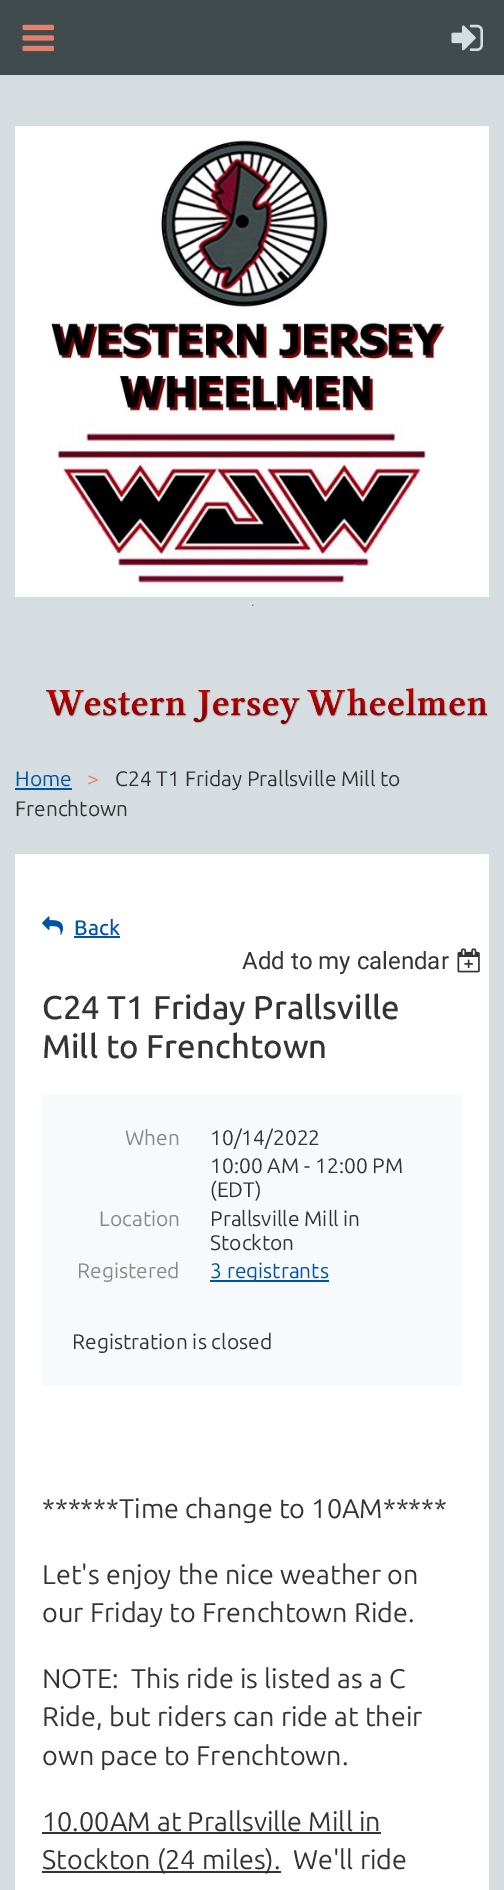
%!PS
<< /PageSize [504 1890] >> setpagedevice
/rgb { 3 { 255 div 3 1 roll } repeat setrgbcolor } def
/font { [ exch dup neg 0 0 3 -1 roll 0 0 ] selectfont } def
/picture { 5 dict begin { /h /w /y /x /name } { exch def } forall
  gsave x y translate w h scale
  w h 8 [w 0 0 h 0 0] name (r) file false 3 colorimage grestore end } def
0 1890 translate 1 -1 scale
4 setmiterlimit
214 221 225 rgb
0 0 504 1890 rectfill
64 75 77 rgb
0 0 504 75 rectfill
(img/1.rgb) 22 24 32 28 picture
(img/2.rgb) 451 24 32 27 picture
(img/3.rgb) 15 126 474 471 picture
(img/4.rgb) 252 604 2 2 picture
(img/5.rgb) 45 688 444 38 picture
0 84 166 rgb
15 788 57 2 rectfill
255 255 255 rgb
15 854 474 1036 rectfill
(img/6.rgb) 42 916 21 20 picture
0 84 166 rgb
74 936 46 2 rectfill
(img/7.rgb) 457 948 23 25 picture
[
  [42 1095 420 291 247 250 252]
  [210 1280 119 2 0 84 166]
  [42 1832 339 2 51 51 51]
  [42 1871 239 2 51 51 51]
] { aload pop rgb rectfill } forall
/Ubuntu-Regular 21 font
232 127 109 rgb
87 786 moveto (>) show
51 51 51 rgb
115 786 moveto (C24 T1 Friday Prallsville Mill to) show
15 816 moveto (Frenchtown) show
0 84 166 rgb
15 786 moveto (Home) show
/Ubuntu-Medium 21 font
74 935 moveto (Back) show
/Roboto-Regular 24 font
51 51 51 rgb
242 969 moveto (Add to my calendar) show
/Ubuntu-Medium 33 font
42 1019 moveto (C24 T1 Friday Prallsville) show
42 1058 moveto (Mill to Frenchtown) show
/Ubuntu-Regular 21 font
137 137 137 rgb
125 1145 moveto (When) show
51 51 51 rgb
[
  [(10/14/2022) 210 1145]
  [(10:00 AM - 12:00 PM) 210 1173]
  [(\(EDT\)) 210 1197]
] { aload pop moveto show } forall
137 137 137 rgb
99 1226 moveto (Location) show
51 51 51 rgb
210 1226 moveto (Prallsville Mill in) show
210 1250 moveto (Stockton) show
137 137 137 rgb
77 1278 moveto (Registered) show
0 84 166 rgb
210 1278 moveto (3 registrants) show
51 51 51 rgb
72 1349 moveto (Registration is closed) show
/Ubuntu-Regular 27 font
[
  [(******Time change to 10AM*****) 42 1518]
  [(Let's enjoy the nice weather on) 42 1584]
  [(our Friday to Frenchtown Ride.) 42 1622]
  [(NOTE:  This ride is listed as a C) 42 1688]
  [(Ride, but riders can ride at their) 42 1726]
  [(own pace to Frenchtown.) 42 1765]
  [(10.00AM at Prallsville Mill in) 42 1831]
  [(Stockton \(24 miles\).) 42 1869]
  [(We'll ride) 293 1869]
] { aload pop moveto show } forall
showpage
